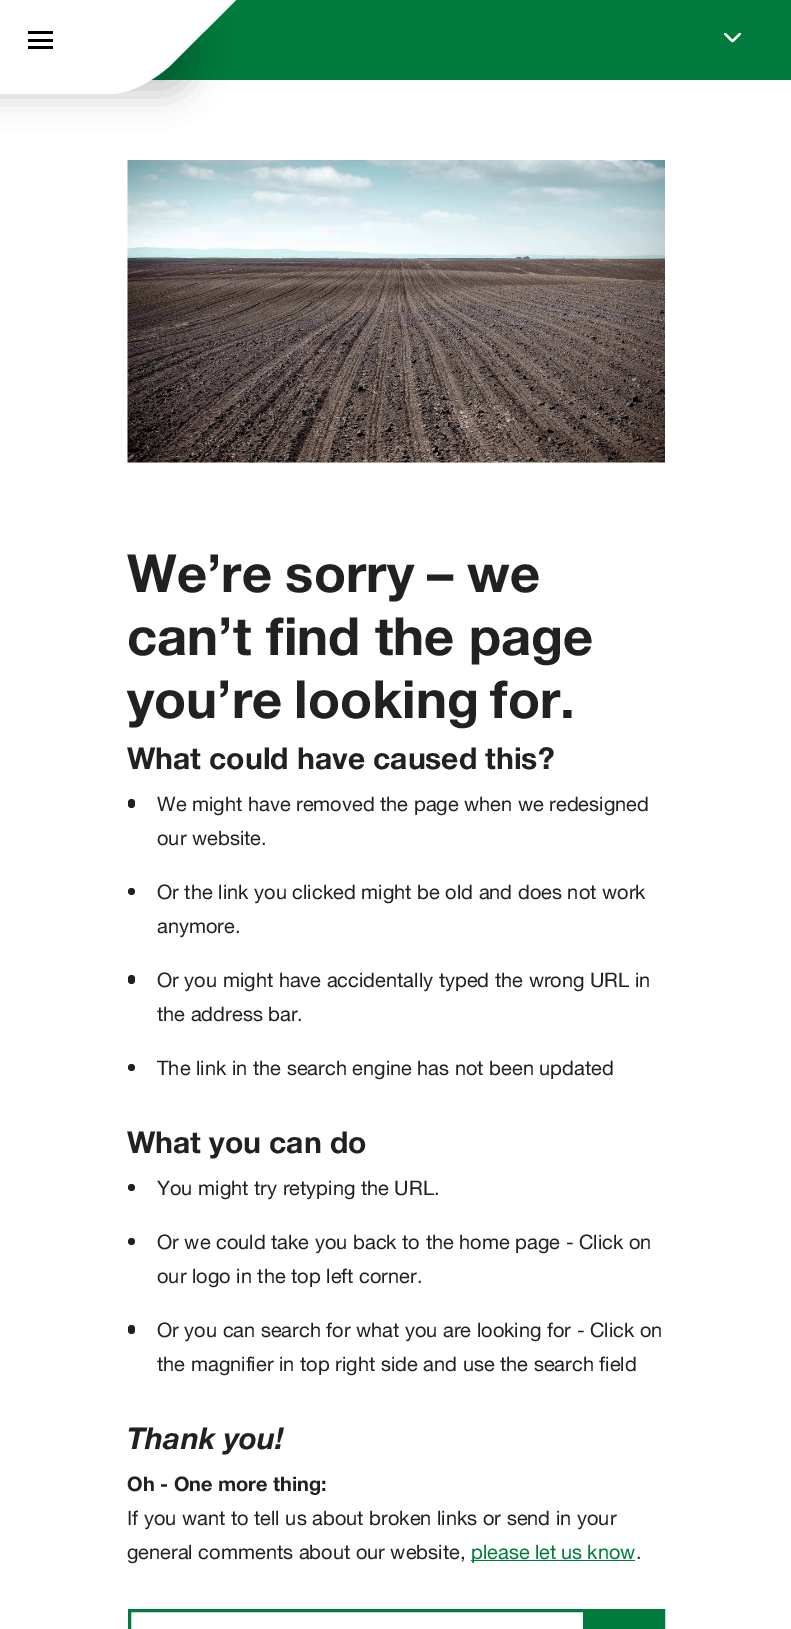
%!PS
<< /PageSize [791 1629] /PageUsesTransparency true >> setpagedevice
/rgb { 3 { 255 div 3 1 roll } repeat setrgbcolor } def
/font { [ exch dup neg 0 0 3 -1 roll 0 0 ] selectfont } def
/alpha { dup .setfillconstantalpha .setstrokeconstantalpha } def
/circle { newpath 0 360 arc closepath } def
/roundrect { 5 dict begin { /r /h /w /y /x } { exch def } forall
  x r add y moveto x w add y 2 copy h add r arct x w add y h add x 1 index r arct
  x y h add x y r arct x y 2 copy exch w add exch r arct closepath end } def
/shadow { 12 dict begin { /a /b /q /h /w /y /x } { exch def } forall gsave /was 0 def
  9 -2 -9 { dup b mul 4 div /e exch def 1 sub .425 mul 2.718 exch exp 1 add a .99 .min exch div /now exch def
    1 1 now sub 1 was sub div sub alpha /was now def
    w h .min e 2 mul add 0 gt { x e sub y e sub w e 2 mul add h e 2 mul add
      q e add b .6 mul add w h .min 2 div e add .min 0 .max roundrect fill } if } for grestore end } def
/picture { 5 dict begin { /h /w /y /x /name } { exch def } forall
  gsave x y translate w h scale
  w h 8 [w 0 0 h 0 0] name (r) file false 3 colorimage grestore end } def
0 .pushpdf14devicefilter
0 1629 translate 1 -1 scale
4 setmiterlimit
255 255 255 rgb
0 0 791 1629 rectfill
0 123 59 rgb
151 0 640 80 rectfill
0 0 0 rgb
-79 -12 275 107 31 16 0.2 shadow
255 255 255 rgb
-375 -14 moveto 250 -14 lineto 174 62 lineto 156 80 129 94 111 94 curveto -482 94 lineto closepath fill
[
  [28 39 25 3 0 0 0]
  [28 31 25 3 0 0 0]
  [28 46 25 3 0 0 0]
] { aload pop rgb rectfill } forall
(img/1.rgb) 724 33 17 10 picture
(img/2.rgb) 127 160 538 303 picture
33 33 33 rgb
128 799 7 9 3.5 roundrect fill
131.5 891.5 3.5 circle fill
128 975 7 9 3.5 roundrect fill
131.5 1067.5 3.5 circle fill
131.5 1187.5 3.5 circle fill
131.5 1241.5 3.5 circle fill
128 1325 7 9 3.5 roundrect fill
0 123 59 rgb
471 1560 164 1 rectfill
3 setlinewidth
129.5 1610.5 534 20 rectstroke
583 1612 79 17 rectfill
/HelveticaNeue-Bold 52.5 font
33 33 33 rgb
127 592 moveto -1 0 32 (We’re sorry – we) widthshow
127 655 moveto (can’t find the page) show
127 718 moveto -3 0 32 (you’re looking for.) widthshow
/HelveticaNeue-Bold 30 font
127 769 moveto (What could have caused this?) show
/HelveticaNeue-Regular 20 font
[
  [(We might have removed the page when we redesigned) 157 811]
  [(our website.) 157 845]
  [(Or the link you clicked might be old and does not work) 157 899]
  [(anymore.) 157 933]
  [(Or you might have accidentally typed the wrong URL in) 157 987]
  [(the address bar.) 157 1021]
  [(The link in the search engine has not been updated) 157 1075]
] { aload pop moveto show } forall
/HelveticaNeue-Bold 30 font
127 1153 moveto (What you can do) show
/HelveticaNeue-Regular 20 font
[
  [(You might try retyping the URL.) 157 1195]
  [(Or we could take you back to the home page - Click on) 157 1249]
  [(our logo in the top left corner.) 157 1283]
  [(Or you can search for what you are looking for - Click on) 157 1337]
  [(the magnifier in top right side and use the search field) 157 1371]
] { aload pop moveto show } forall
/HelveticaNeue-BoldItalic 30 font
127 1449 moveto (Thank you!) show
/HelveticaNeue-Bold 20 font
127 1491 moveto (Oh - One more thing:) show
/HelveticaNeue-Regular 20 font
127 1525 moveto (If you want to tell us about broken links or send in your) show
127 1559 moveto (general comments about our website,) show
0 123 59 rgb
471 1559 moveto -0.5 0 32 (please let us know) widthshow
33 33 33 rgb
636 1559 moveto (.) show
.poppdf14devicefilter showpage
